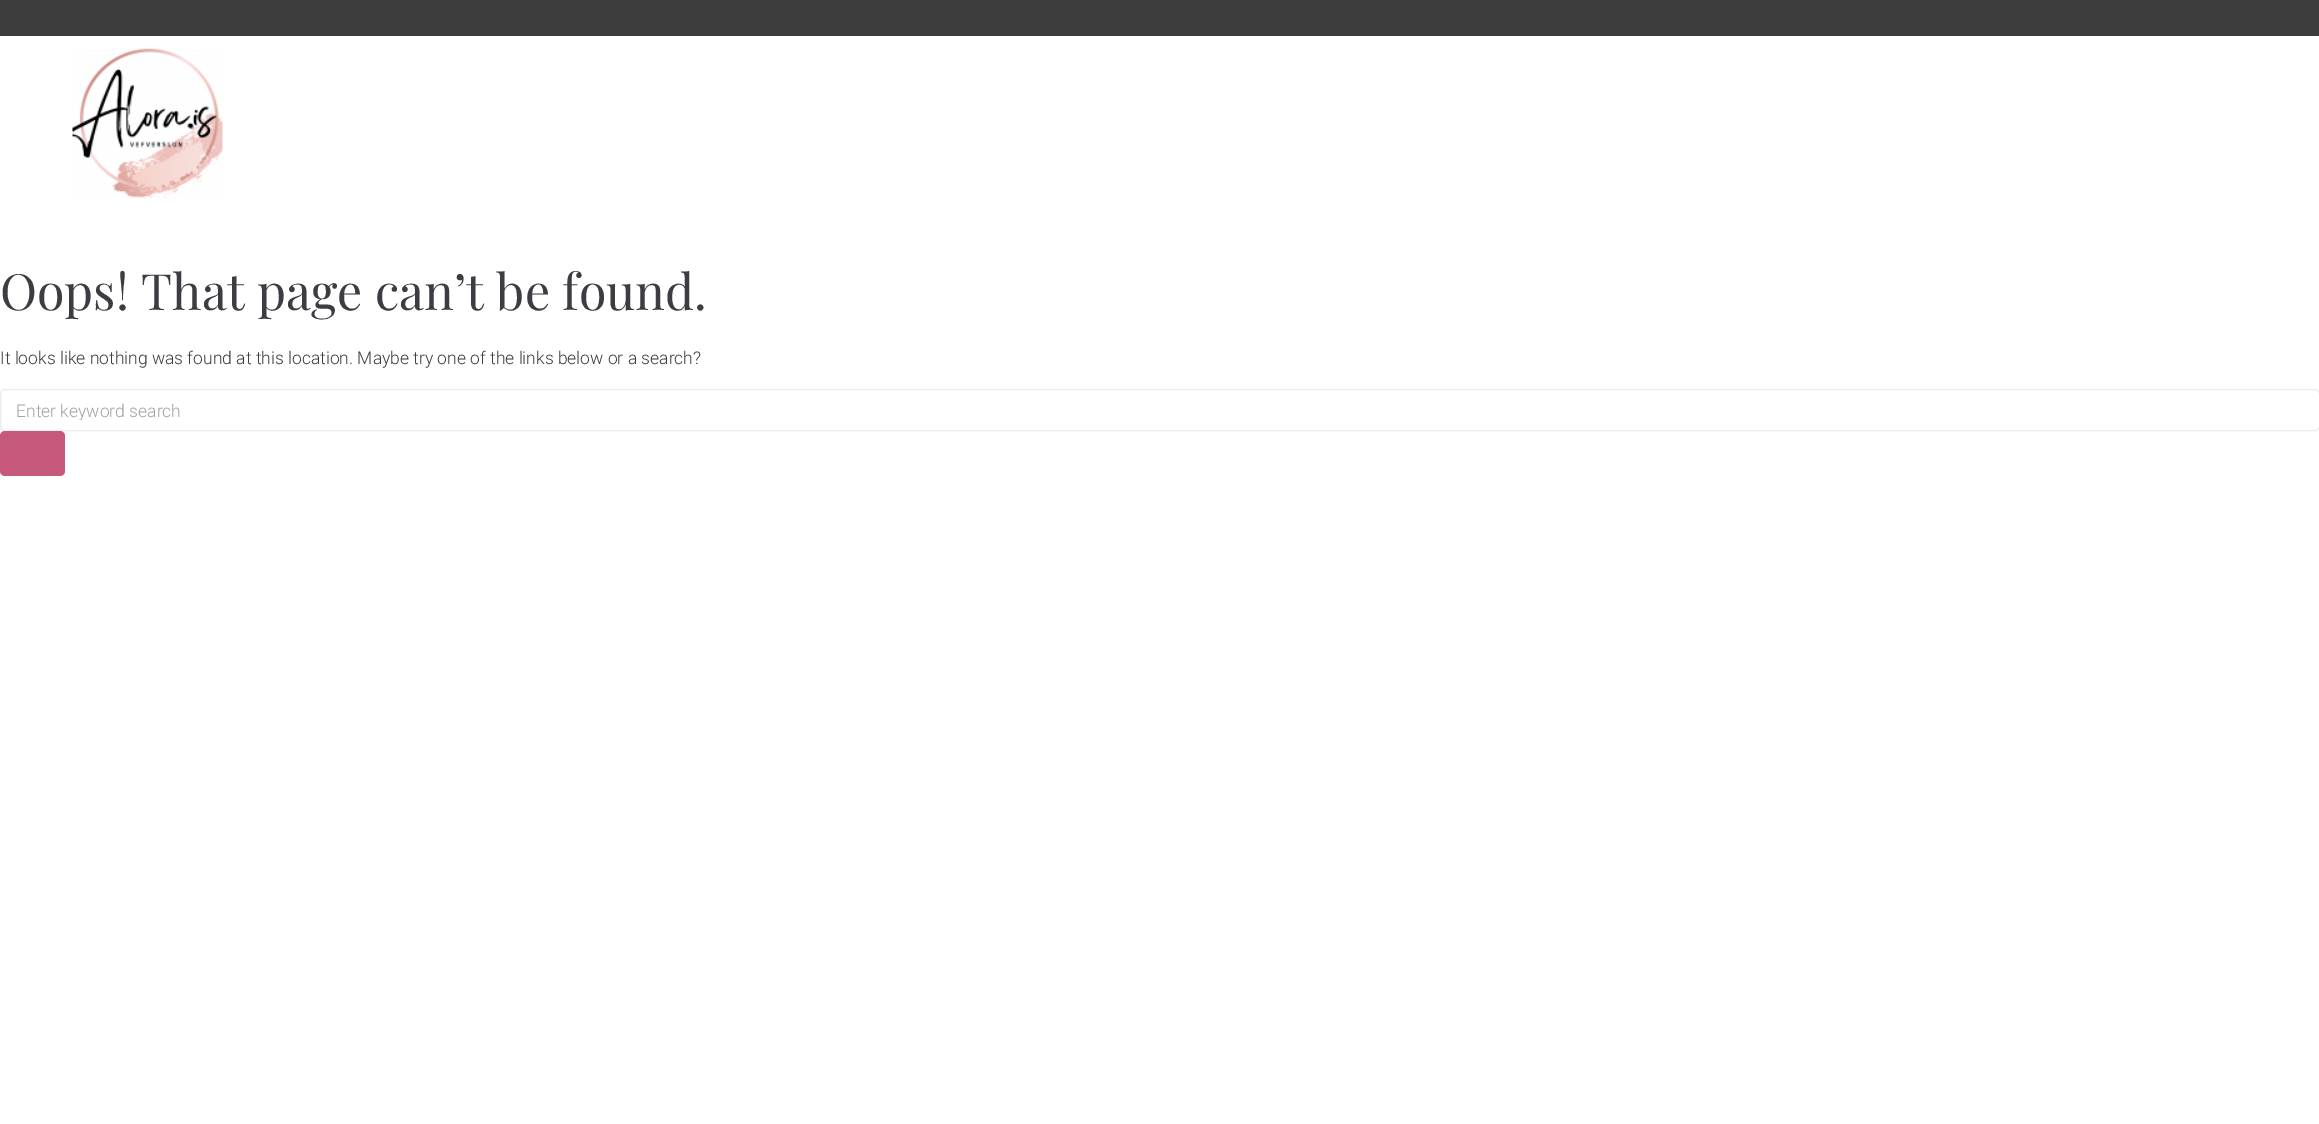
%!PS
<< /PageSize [2319 1124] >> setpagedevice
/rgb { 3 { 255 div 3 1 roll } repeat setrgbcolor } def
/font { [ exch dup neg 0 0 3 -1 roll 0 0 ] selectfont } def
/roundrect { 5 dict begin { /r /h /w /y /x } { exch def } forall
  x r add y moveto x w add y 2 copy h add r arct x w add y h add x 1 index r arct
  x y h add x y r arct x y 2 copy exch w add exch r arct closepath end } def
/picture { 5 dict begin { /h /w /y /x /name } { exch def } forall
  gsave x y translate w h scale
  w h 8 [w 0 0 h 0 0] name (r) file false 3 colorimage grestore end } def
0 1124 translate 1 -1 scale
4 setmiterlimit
255 255 255 rgb
0 0 2319 1124 rectfill
60 60 60 rgb
0 0 2319 36 rectfill
(img/1.rgb) 72 48 151 151 picture
235 236 237 rgb
0.5 389.5 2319 41 4.5 roundrect stroke
198 89 121 rgb
0 431 65 45 5 roundrect fill
/PlayfairDisplay-Regular 50 font
59 61 66 rgb
0 310 moveto (Oops! That page can’t be found.) show
/Roboto-Light 17.5 font
0 364 moveto (It looks like nothing was found at this location. Maybe try one of the links below or a search?) show
gsave
16 400 2283 20 rectclip
161 162 164 rgb
16 417 moveto (Enter keyword search) show
grestore
showpage
